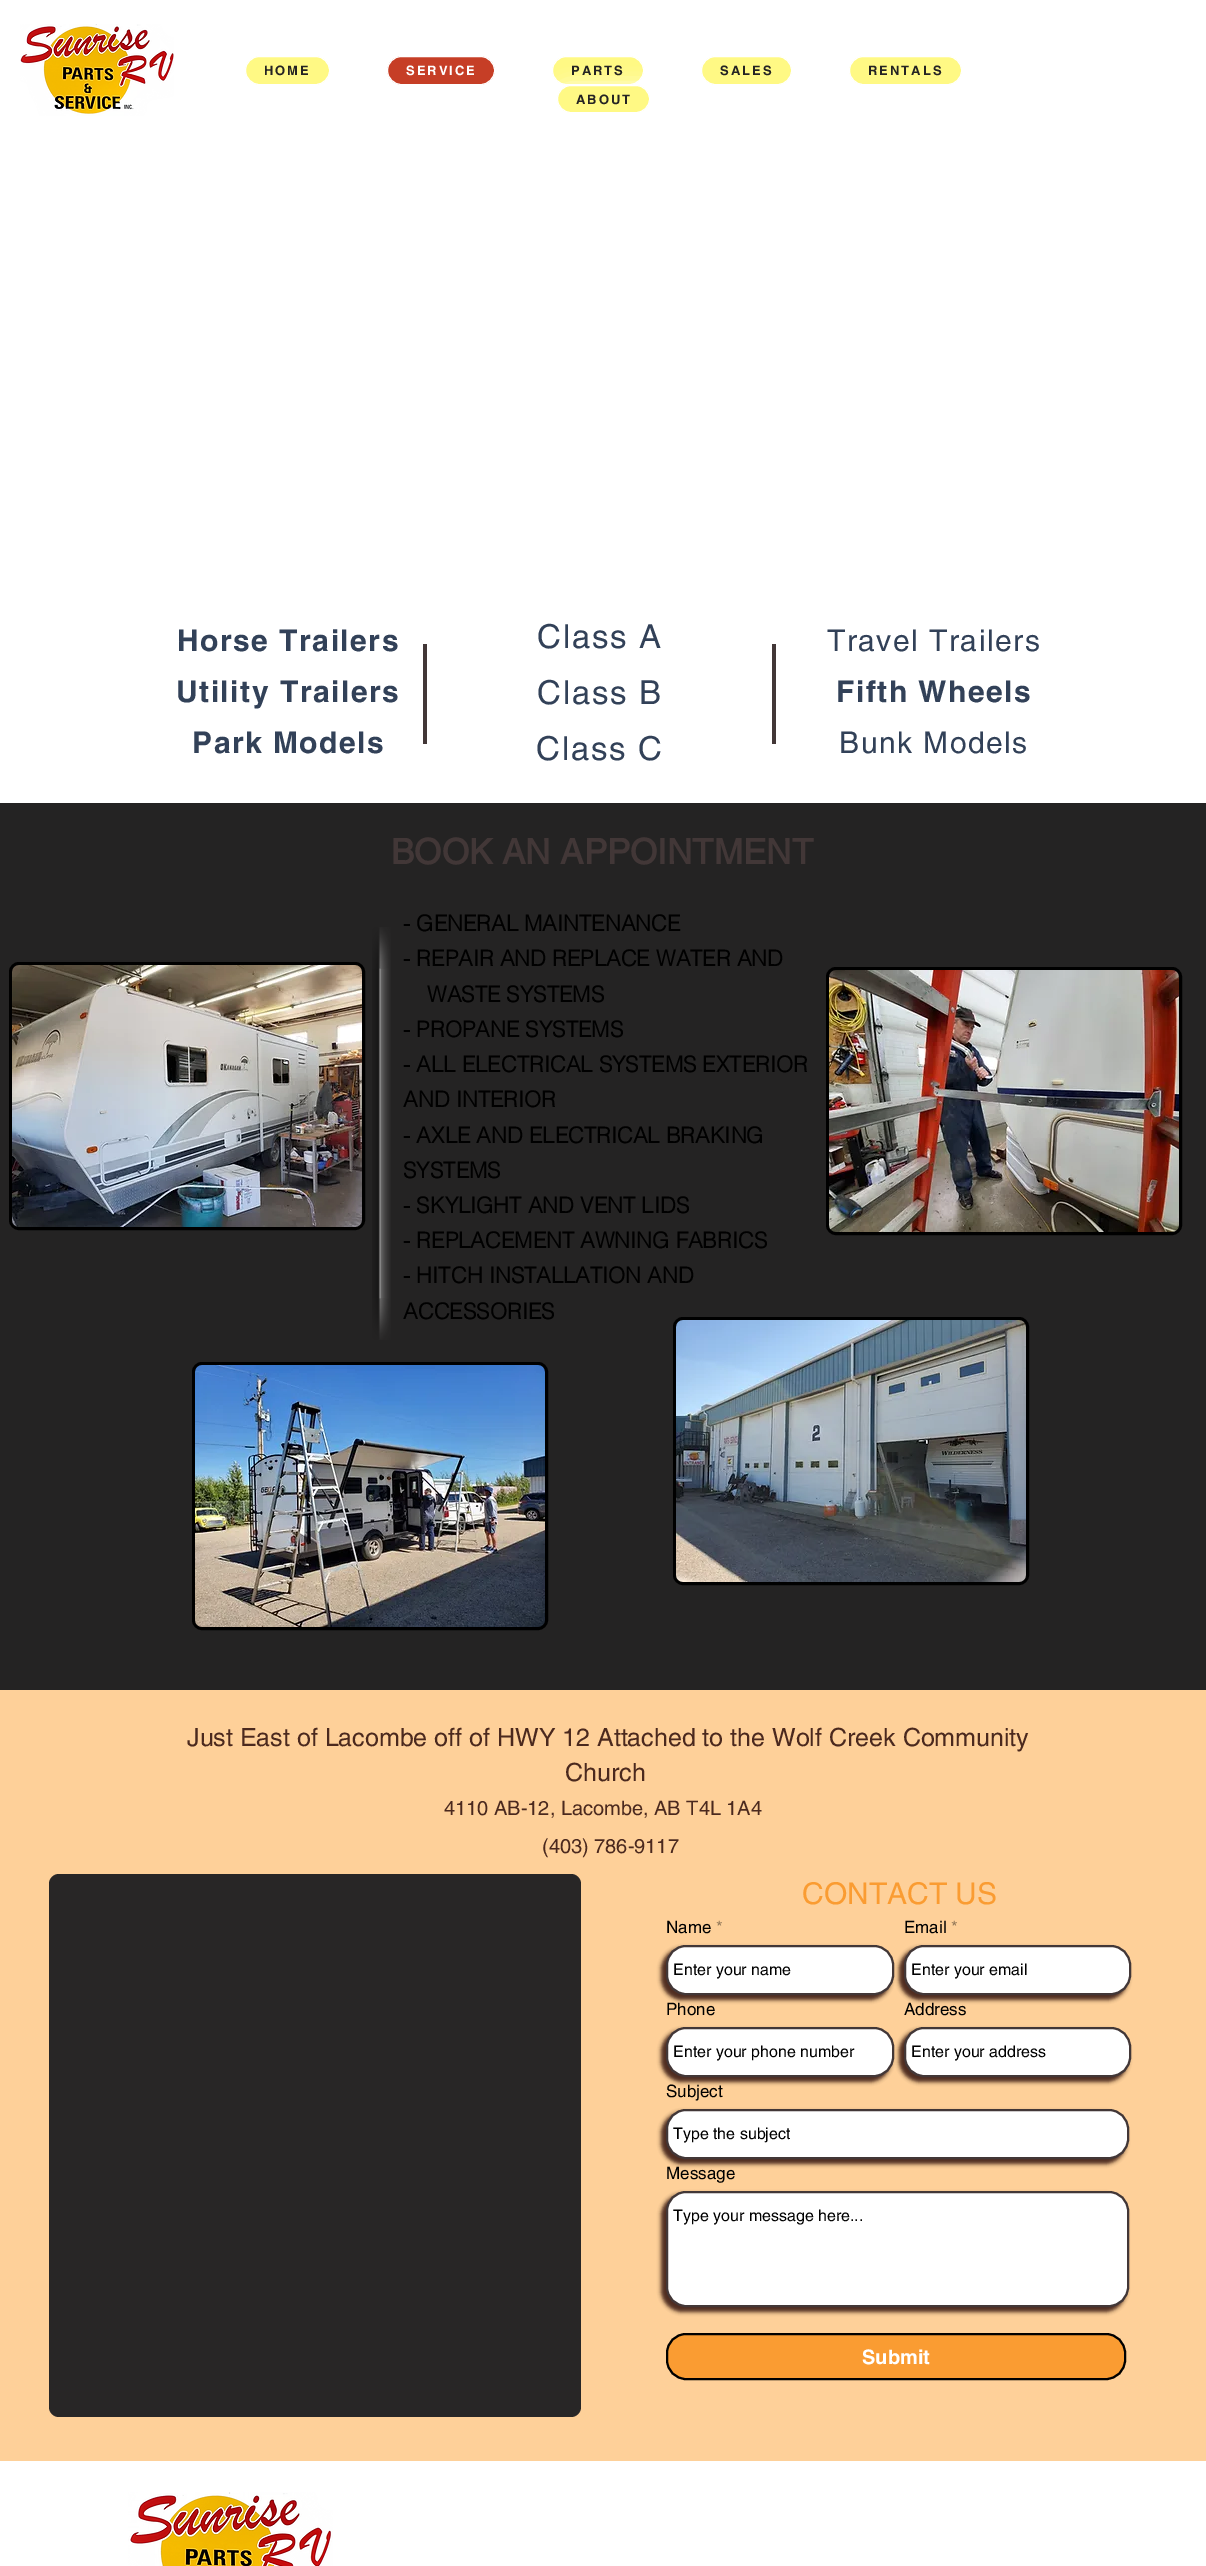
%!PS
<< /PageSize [1206 2566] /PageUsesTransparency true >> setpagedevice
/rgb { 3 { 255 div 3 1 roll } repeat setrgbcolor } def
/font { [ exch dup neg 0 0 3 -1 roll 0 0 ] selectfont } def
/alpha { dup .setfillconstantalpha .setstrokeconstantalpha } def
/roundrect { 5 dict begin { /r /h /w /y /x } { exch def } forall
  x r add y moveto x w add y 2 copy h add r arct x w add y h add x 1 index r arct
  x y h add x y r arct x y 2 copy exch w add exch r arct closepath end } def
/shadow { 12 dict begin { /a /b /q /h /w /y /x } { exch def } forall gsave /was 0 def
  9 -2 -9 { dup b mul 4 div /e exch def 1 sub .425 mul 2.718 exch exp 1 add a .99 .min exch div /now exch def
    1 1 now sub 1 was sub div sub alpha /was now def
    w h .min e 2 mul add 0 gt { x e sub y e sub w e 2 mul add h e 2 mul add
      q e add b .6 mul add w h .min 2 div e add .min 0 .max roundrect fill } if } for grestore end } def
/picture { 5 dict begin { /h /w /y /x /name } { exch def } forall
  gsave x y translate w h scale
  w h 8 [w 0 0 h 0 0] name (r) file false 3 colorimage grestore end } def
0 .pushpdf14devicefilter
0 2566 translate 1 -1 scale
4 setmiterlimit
255 255 255 rgb
0 0 1206 2566 rectfill
(img/1.rgb) 20 24 154 92 picture
255 249 132 rgb
245.5 56.5 84 28 14 roundrect gsave fill grestore
255 255 255 rgb
stroke
198 62 38 rgb
387.5 56.5 107 28 14 roundrect gsave fill grestore
255 255 255 rgb
stroke
255 249 132 rgb
552.5 56.5 91 28 14 roundrect gsave fill grestore
255 255 255 rgb
stroke
255 249 132 rgb
701.5 56.5 90 28 14 roundrect gsave fill grestore
255 255 255 rgb
stroke
255 249 132 rgb
849.5 56.5 112 28 14 roundrect gsave fill grestore
255 255 255 rgb
stroke
560 88 93 28 14 9.5 1 shadow
255 249 132 rgb
557.5 85.5 92 27 13.5 roundrect gsave fill grestore
255 255 255 rgb
stroke
[
  [423 644 4 100 66 55 55]
  [772 644 4 100 66 55 55]
  [0 803 1206 887 36 35 35]
] { aload pop rgb rectfill } forall
0 0 0 rgb
3 setlinewidth
10.5 963.5 353 265 8.5 roundrect stroke
(img/2.rgb) 12 965 350 262 picture
(img/3.rgb) 372 968 19 331 picture
(img/4.rgb) 372 927 19 42 picture
(img/5.rgb) 372 1298 19 42 picture
827.5 968.5 353 265 8.5 roundrect stroke
(img/6.rgb) 829 970 350 262 picture
193.5 1363.5 353 265 8.5 roundrect stroke
(img/7.rgb) 195 1365 350 262 picture
674.5 1318.5 353 265 8.5 roundrect stroke
(img/8.rgb) 676 1320 350 262 picture
254 208 153 rgb
0 1690 1206 771 rectfill
40 38 38 rgb
49 1874 532 543 10 roundrect fill
75 41 30 rgb
661 1948 230 52 21 2 1 shadow
255 255 255 rgb
667 1946 226 48 19 roundrect gsave fill grestore
66 55 55 rgb
2 setlinewidth
stroke
75 41 30 rgb
899 1948 229 52 21 2 1 shadow
255 255 255 rgb
905 1946 225 48 19 roundrect gsave fill grestore
66 55 55 rgb
stroke
75 41 30 rgb
661 2030 230 52 21 2 1 shadow
255 255 255 rgb
667 2028 226 48 19 roundrect gsave fill grestore
66 55 55 rgb
stroke
75 41 30 rgb
899 2030 229 52 21 2 1 shadow
255 255 255 rgb
905 2028 225 48 19 roundrect gsave fill grestore
66 55 55 rgb
stroke
75 41 30 rgb
661 2112 465 52 21 2 1 shadow
255 255 255 rgb
667 2110 461 48 19 roundrect gsave fill grestore
66 55 55 rgb
stroke
75 41 30 rgb
661 2194 465 118 21 2 1 shadow
255 255 255 rgb
667 2192 461 114 19 roundrect gsave fill grestore
66 55 55 rgb
stroke
250 156 50 rgb
667 2334 458 45 19 roundrect gsave fill grestore
0 0 0 rgb
stroke
(img/9.rgb) 128 2492 205 74 picture
/helvetica-Bold 13 font
36 35 35 rgb
264 75 moveto 2 0 (HOME) ashow
255 255 255 rgb
406 75 moveto 2 0 (SERVICE) ashow
36 35 35 rgb
571 75 moveto 2 0 (PARTS) ashow
720 75 moveto 2 0 (SALES) ashow
868 75 moveto 2 0 (RENTALS) ashow
576 104 moveto 2 0 (ABOUT) ashow
/helvetica-Bold 30 font
50 65 88 rgb
177 651 moveto 1.5 0 (Horse Trailers) ashow
176 702 moveto 1.5 0 (Utility Trailers) ashow
192 753 moveto 1.5 0 (Park Models) ashow
/helvetica-Regular 33 font
537 648 moveto 1.75 0 (Class A) ashow
537 704 moveto 1.75 0 (Class B) ashow
536 760 moveto 1.75 0 (Class C) ashow
/helvetica-Regular 30 font
827 651 moveto 1.5 0 (Travel Trailers) ashow
/helvetica-Bold 30 font
836 702 moveto 1.5 0 (Fifth Wheels) ashow
/helvetica-Regular 30 font
839 753 moveto 1.5 0 (Bunk Models) ashow
/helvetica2-Bold 35 font
66 55 55 rgb
391 864 moveto (BOOK AN APPOINTMENT) show
/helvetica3-Bold 22 font
0 0 0 rgb
[
  [(- GENERAL MAINTENANCE) 403 931]
  [(- REPAIR AND REPLACE WATER AND) 403 966]
  [(WASTE SYSTEMS) 427 1002]
  [(- PROPANE SYSTEMS) 403 1037]
  [(- ALL ELECTRICAL SYSTEMS EXTERIOR) 403 1072]
  [(AND INTERIOR) 403 1107]
  [(- AXLE AND ELECTRICAL BRAKING) 403 1143]
  [(SYSTEMS) 403 1178]
  [(- SKYLIGHT AND VENT LIDS) 403 1213]
  [(- REPLACEMENT AWNING FABRICS) 403 1248]
  [(- HITCH INSTALLATION AND) 403 1283]
  [(ACCESSORIES) 403 1319]
] { aload pop moveto show } forall
/helvetica-Regular 25 font
75 41 30 rgb
187 1746 moveto (Just East of Lacombe off of HWY 12 Attached to the Wolf Creek Community) show
565 1781 moveto (Church) show
/helvetica-Regular 20 font
444 1815 moveto (4110 AB-12, Lacombe, AB T4L 1A4) show
542 1853 moveto (\(403\) 786-9117) show
/helvetica-Regular 30 font
250 156 50 rgb
802 1904 moveto (CONTACT US) show
/helvetica-Regular 17 font
0 0 0 rgb
666 1933 moveto (Name) show
147 121 89 rgb
716 1933 moveto (*) show
/helvetica-Regular 16 font
0 0 0 rgb
673 1975 moveto (Enter your name) show
/helvetica-Regular 17 font
904 1933 moveto (Email) show
147 121 89 rgb
951 1933 moveto (*) show
/helvetica-Regular 16 font
0 0 0 rgb
911 1975 moveto (Enter your email) show
/helvetica-Regular 17 font
666 2015 moveto (Phone) show
/helvetica-Regular 16 font
673 2057 moveto (Enter your phone number) show
/helvetica-Regular 17 font
904 2015 moveto (Address) show
/helvetica-Regular 16 font
911 2057 moveto (Enter your address) show
/helvetica-Regular 17 font
666 2097 moveto (Subject) show
/helvetica-Regular 16 font
673 2139 moveto (Type the subject) show
/helvetica-Regular 17 font
666 2179 moveto (Message) show
/helvetica-Regular 16 font
673 2221 moveto (Type your message here...) show
/helvetica-Bold 20 font
255 255 255 rgb
862 2364 moveto (Submit) show
.poppdf14devicefilter showpage
